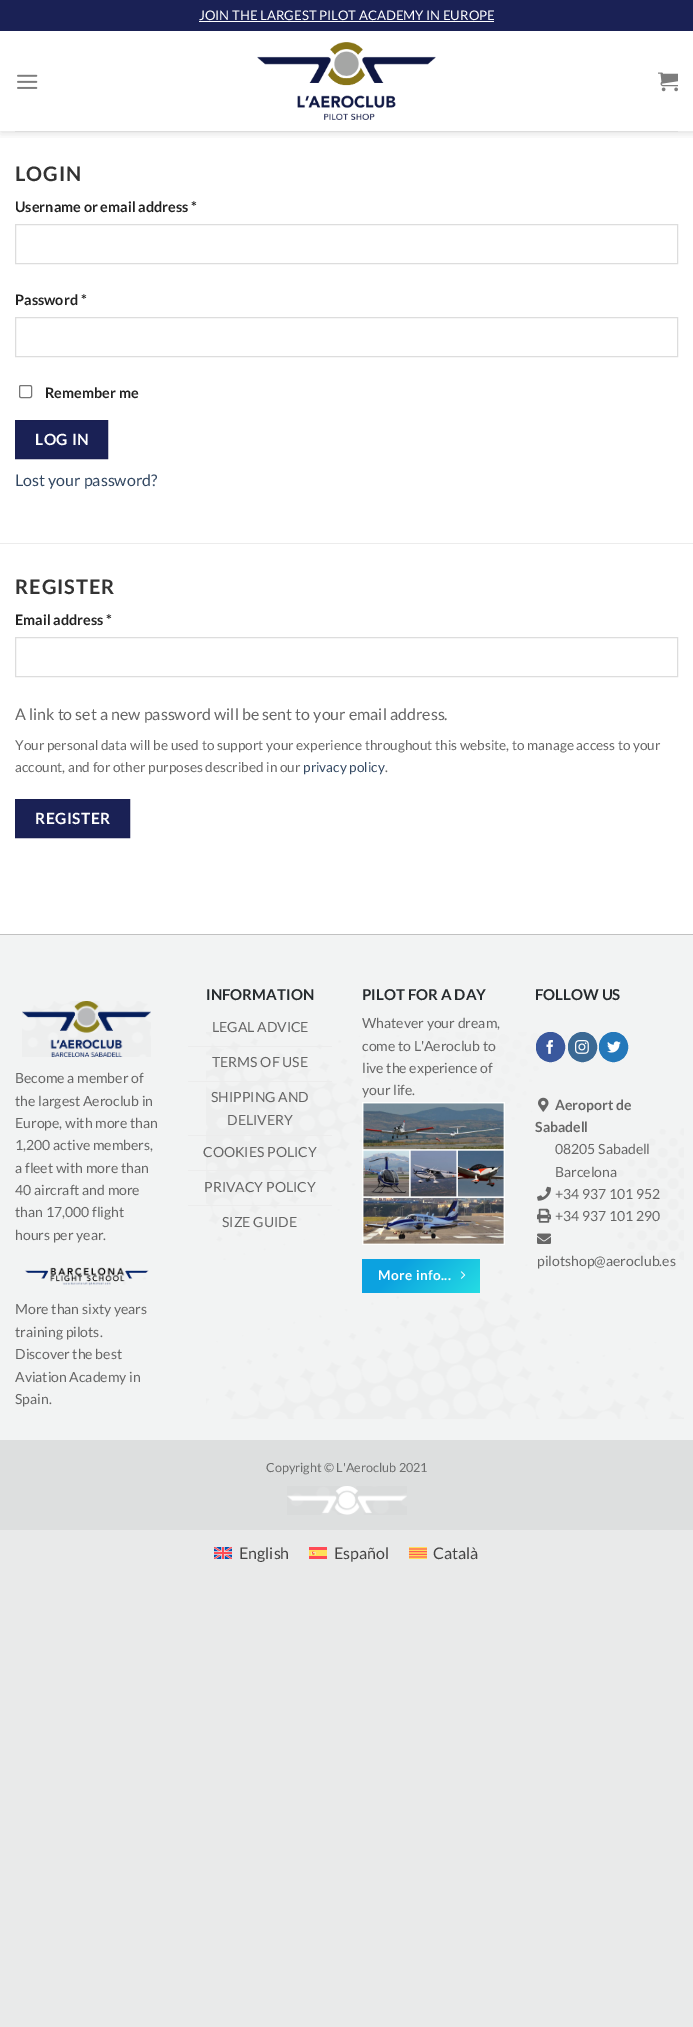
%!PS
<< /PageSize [693 2027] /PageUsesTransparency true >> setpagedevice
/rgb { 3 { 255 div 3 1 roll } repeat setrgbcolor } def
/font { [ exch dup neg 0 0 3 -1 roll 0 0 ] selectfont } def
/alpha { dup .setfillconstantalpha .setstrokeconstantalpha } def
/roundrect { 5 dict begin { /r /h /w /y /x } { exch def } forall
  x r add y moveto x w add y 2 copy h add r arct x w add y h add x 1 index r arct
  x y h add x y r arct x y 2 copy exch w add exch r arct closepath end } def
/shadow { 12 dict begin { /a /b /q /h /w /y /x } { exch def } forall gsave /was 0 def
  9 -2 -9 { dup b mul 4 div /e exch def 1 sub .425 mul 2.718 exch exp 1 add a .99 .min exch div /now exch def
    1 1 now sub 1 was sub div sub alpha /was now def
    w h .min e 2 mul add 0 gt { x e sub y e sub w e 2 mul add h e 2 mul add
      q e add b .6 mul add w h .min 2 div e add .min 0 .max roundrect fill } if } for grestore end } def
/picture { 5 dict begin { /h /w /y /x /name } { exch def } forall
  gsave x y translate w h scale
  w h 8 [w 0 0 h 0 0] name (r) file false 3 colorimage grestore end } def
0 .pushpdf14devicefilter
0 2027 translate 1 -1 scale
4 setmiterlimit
233 234 234 rgb
0 0 693 2027 rectfill
255 255 255 rgb
0 31 693 903 rectfill
gsave
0 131 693 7 rectclip
0 0 0 rgb
1 1 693 131 0 5 0.15 shadow
grestore
26 33 85 rgb
0 0 693 31 rectfill
255 255 255 rgb
199 21 295 1 rectfill
(img/1.rgb) 17 74 21 15 picture
(img/2.rgb) 257 42 179 78 picture
(img/3.rgb) 658 72 20 20 picture
221 221 221 rgb
15 131 663 1 rectfill
236 236 236 rgb
0 543 693 1 rectfill
221 221 221 rgb
15.5 224.5 662 39 rectstroke
15.5 317.5 662 39 rectstroke
118 118 118 rgb
19.5 385.5 12 12 1.5 roundrect stroke
26 33 85 rgb
15.5 420.5 moveto 107.5 420.5 lineto 107.5 458.5 lineto 15.5 458.5 lineto closepath gsave fill grestore
25 31 81 rgb
stroke
221 221 221 rgb
15.5 637.5 662 39 rectstroke
26 33 85 rgb
15.5 799.5 moveto 129.5 799.5 lineto 129.5 837.5 lineto 15.5 837.5 lineto closepath gsave fill grestore
25 31 81 rgb
stroke
242 243 243 rgb
0 935 693 505 rectfill
221 223 223 rgb
0 1440 693 90 rectfill
(img/4.rgb) 206 1032 478 387 picture
193 193 193 rgb
0 934 693 1 rectfill
(img/5.rgb) 22 1001 129 56 picture
(img/6.rgb) 24 1267 125 19 picture
[
  [188 1046 144 1 236 236 236]
  [188 1081 144 1 236 236 236]
  [188 1135 144 1 236 236 236]
  [188 1170 144 1 236 236 236]
  [188 1205 144 1 236 236 236]
] { aload pop rgb rectfill } forall
(img/7.rgb) 362 1102 143 143 picture
gsave 362 1259 118 34 3 roundrect clip newpath
<< /ShadingType 2 /ColorSpace /DeviceRGB /Coords [383 1238 459 1314] /Extend [true true] /Function << /FunctionType 3 /Domain [0 1] /Functions [<< /FunctionType 2 /Domain [0 1] /C0 [0.047 0.635 0.878] /C1 [0.047 0.635 0.878] /N 1 >> << /FunctionType 2 /Domain [0 1] /C0 [0.047 0.635 0.878] /C1 [0.145 0.867 0.894] /N 1 >>] /Bounds [0.3] /Encode [0 1 0 1] >> >> shfill grestore
(img/8.rgb) 460 1271 6 8 picture
58 88 157 rgb
536.5 1032.5 28 29 14 roundrect gsave fill grestore
stroke
(img/9.rgb) 546 1040 7 14 picture
59 105 148 rgb
568.5 1032.5 28 29 14 roundrect gsave fill grestore
stroke
(img/10.rgb) 575 1040 14 14 picture
36 120 186 rgb
599.5 1032.5 28 29 14 roundrect gsave fill grestore
stroke
(img/11.rgb) 607 1041 14 12 picture
(img/12.rgb) 538 1097 11 15 picture
(img/13.rgb) 537 1186 14 15 picture
(img/14.rgb) 537 1208 14 15 picture
(img/15.rgb) 537 1233 14 11 picture
(img/16.rgb) 287 1486 120 29 picture
(img/17.rgb) 214 1547 18 12 picture
(img/18.rgb) 309 1547 18 12 picture
(img/19.rgb) 409 1547 18 12 picture
/Lato-Regular 13.2 font
255 255 255 rgb
199 20 moveto (JOIN THE LARGEST PILOT ACADEMY IN EUROPE) show
/Lato-Bold 20 font
51 51 51 rgb
15 181 moveto 1 0 (LOGIN) ashow
/Lato-Bold 14.4 font
34 34 34 rgb
[
  [(Username or email address *) 15 212]
  [(Password *) 15 305]
  [(Remember me) 45 398]
] { aload pop moveto show } forall
/Lato-Bold 15.5 font
255 255 255 rgb
35 445 moveto 0.5 0 (LOG IN) ashow
/Lato-Regular 16 font
51 72 98 rgb
15 486 moveto (Lost your password?) show
/Lato-Bold 20 font
51 51 51 rgb
15 594 moveto 1 0 (REGISTER) ashow
/Lato-Bold 14.4 font
34 34 34 rgb
15 625 moveto (Email address *) show
/Lato-Regular 16 font
102 102 102 rgb
15 720 moveto (A link to set a new password will be sent to your email address.) show
/Lato-Regular 13.6 font
15 750 moveto (Your personal data will be used to support your experience throughout this website, to manage access to your) show
15 772 moveto (account, and for other purposes described in our) show
51 72 98 rgb
303 772 moveto (privacy policy) show
102 102 102 rgb
385 772 moveto (.) show
/Lato-Bold 15.5 font
255 255 255 rgb
35 824 moveto 0.5 0 (REGISTER) ashow
/Lato-Regular 14 font
102 102 102 rgb
[
  [(Become a member of) 15 1083]
  [(the largest Aeroclub in) 15 1106]
  [(Europe, with more than) 15 1128]
  [(1,200 active members,) 15 1150]
  [(a fleet with more than) 15 1173]
  [(40 aircraft and more) 15 1195]
  [(than 17,000 flight) 15 1217]
  [(hours per year.) 15 1240]
  [(More than sixty years) 15 1314]
  [(training pilots.) 15 1337]
  [(Discover the best) 15 1359]
  [(Aviation Academy in) 15 1382]
  [(Spain.) 15 1404]
] { aload pop moveto show } forall
/Lato-Bold 15 font
38 43 46 rgb
206 1000 moveto (INFORMATION) show
/Lato-Regular 14 font
102 102 102 rgb
[
  [(LEGAL ADVICE) 212 1032]
  [(TERMS OF USE) 212 1067]
  [(SHIPPING AND) 211 1102]
  [(DELIVERY) 227 1125]
  [(COOKIES POLICY) 203 1157]
  [(PRIVACY POLICY) 204 1192]
  [(SIZE GUIDE) 222 1227]
] { aload pop moveto show } forall
/Lato-Bold 15 font
38 43 46 rgb
362 1000 moveto (PILOT FOR A DAY) show
/Lato-Regular 14 font
102 102 102 rgb
[
  [(Whatever your dream,) 362 1028]
  [(come to L'Aeroclub to) 362 1051]
  [(live the experience of) 362 1073]
  [(your life.) 362 1095]
] { aload pop moveto show } forall
/Lato-Bold 13.5 font
255 255 255 rgb
378 1280 moveto 0.4 0 (More info...) ashow
/Lato-Bold 15 font
38 43 46 rgb
535 1000 moveto (FOLLOW US) show
/Lato-Bold 14 font
102 102 102 rgb
555 1110 moveto (Aeroport de) show
535 1132 moveto (Sabadell) show
/Lato-Regular 14 font
[
  [(08205 Sabadell) 555 1154]
  [(Barcelona) 555 1177]
  [(+34 937 101 952) 555 1199]
  [(+34 937 101 290) 555 1221]
  [(pilotshop@aeroclub.es) 537 1266]
] { aload pop moveto show } forall
/Lato-Regular 12.6 font
109 110 110 rgb
266 1472 moveto (Copyright © L'Aeroclub 2021) show
/Lato-Regular 16 font
68 68 68 rgb
[
  [(English) 239 1559]
  [(Español) 334 1559]
  [(Català) 433 1559]
] { aload pop moveto show } forall
.poppdf14devicefilter showpage
